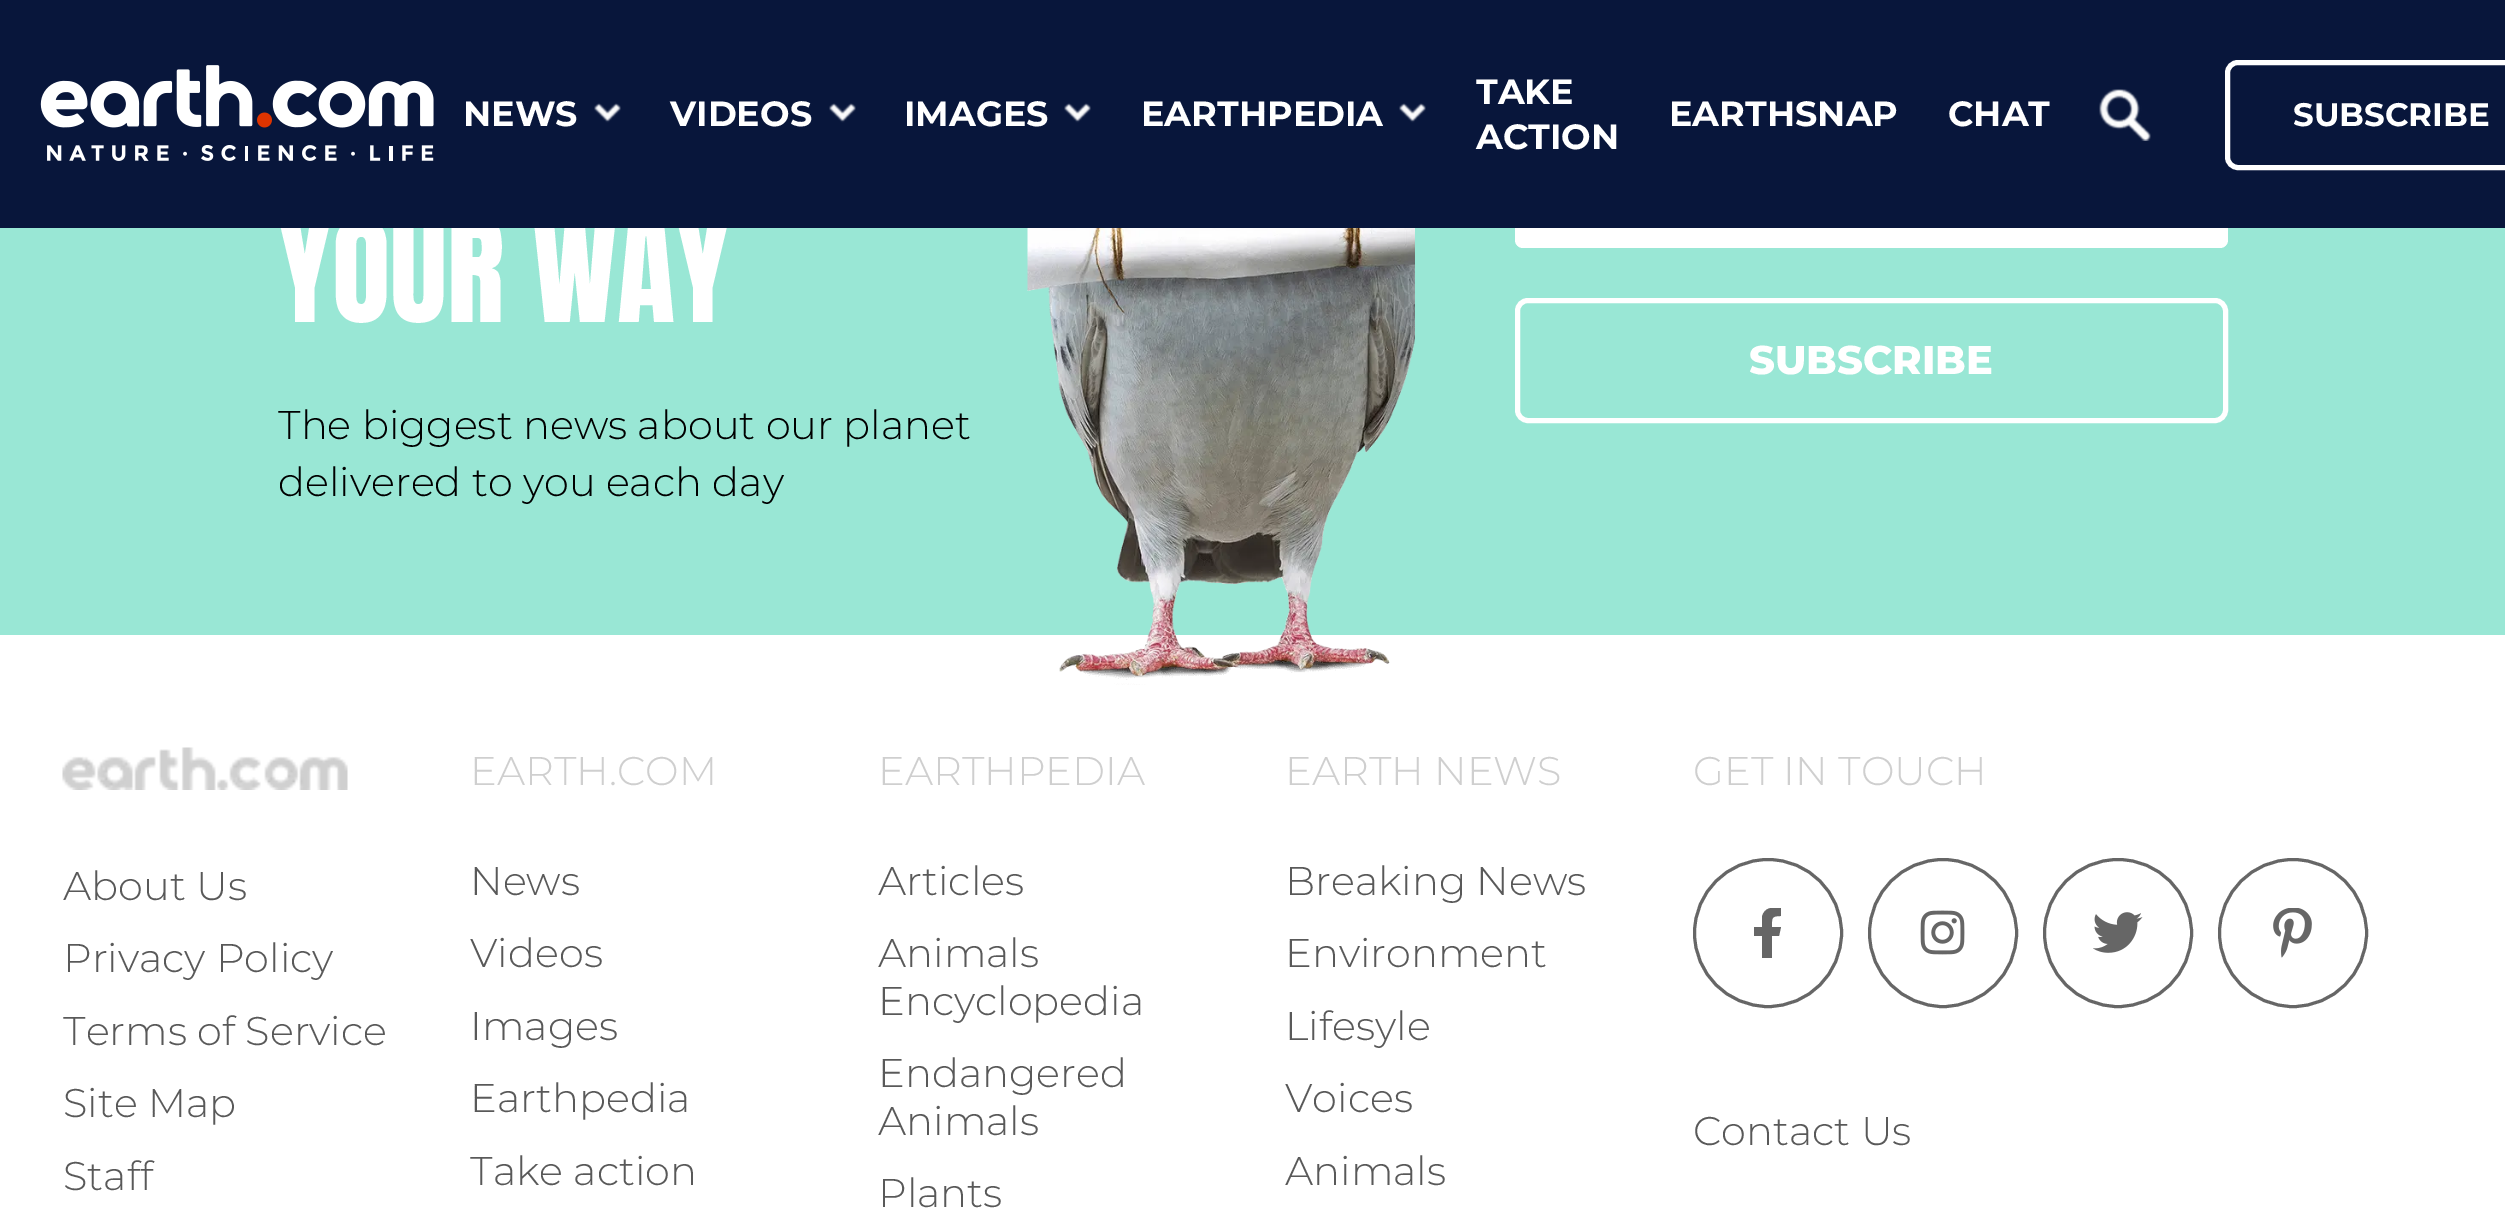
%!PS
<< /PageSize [2505 1219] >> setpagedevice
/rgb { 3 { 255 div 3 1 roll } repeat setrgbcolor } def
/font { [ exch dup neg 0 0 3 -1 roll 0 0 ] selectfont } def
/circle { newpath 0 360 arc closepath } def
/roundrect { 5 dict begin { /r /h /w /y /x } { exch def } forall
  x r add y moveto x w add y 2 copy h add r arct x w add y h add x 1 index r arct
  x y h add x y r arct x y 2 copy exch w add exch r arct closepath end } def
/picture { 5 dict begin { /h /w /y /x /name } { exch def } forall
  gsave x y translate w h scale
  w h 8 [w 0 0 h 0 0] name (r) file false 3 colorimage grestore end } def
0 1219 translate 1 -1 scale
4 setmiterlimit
255 255 255 rgb
0 0 2505 1219 rectfill
153 231 213 rgb
0 228 2505 407 rectfill
(img/4.rgb) 1027 228 388 457 picture
255 255 255 rgb
1515 148 713 100 8 roundrect fill
5 setlinewidth
1517.5 300.5 708 120 10.5 roundrect stroke
(img/5.rgb) 62 747 286 43 picture
102 102 102 rgb
3 setlinewidth
1768 933 73.5 circle stroke
gsave
1743 908 50 50 rectclip
1779 936 moveto 1781 927 lineto 1772 927 lineto 1772 918 1771 916 1781 916 curveto 1781 908 lineto 1773 907 1764 907 1762 917 curveto 1762 927 lineto 1754 927 lineto 1754 936 lineto 1762 936 lineto 1762 958 lineto 1772 958 lineto 1772 936 lineto closepath fill
grestore
1943 933 73.5 circle stroke
(img/6.rgb) 1920 910 45 45 picture
2118 933 73.5 circle stroke
(img/7.rgb) 2093 912 50 41 picture
2293 933 73.5 circle stroke
(img/8.rgb) 2273 908 39 50 picture
/Anton-Regular 120 font
255 255 255 rgb
278 322 moveto (YOUR WAY) show
8 22 59 rgb
0 0 2505 228 rectfill
255 255 255 rgb
5 setlinewidth
2227.5 62.5 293 105 10.5 roundrect stroke
/Montserrat-Bold 32.5 font
2293 126 moveto (SUBSCRIBE) show
(img/3.rgb) 2099 89 52 52 picture
/Montserrat-Bold 35 font
[
  [(CHAT) 1948 126]
  [(EARTHSNAP) 1669 126]
  [(ACTION) 1476 149]
  [(TAKE) 1476 104]
] { aload pop moveto show } forall
(img/2.rgb) 1399 103 27 20 picture
1141 126 moveto (EARTHPEDIA) show
(img/2.rgb) 1064 103 27 20 picture
904 126 moveto (IMAGES) show
(img/2.rgb) 829 103 27 20 picture
670 126 moveto (VIDEOS) show
(img/2.rgb) 594 103 27 20 picture
463 126 moveto (NEWS) show
(img/1.rgb) 40 65 394 96 picture
/Montserrat-Light 40 font
0 0 0 rgb
278 439 moveto (The biggest news about our planet) show
278 496 moveto (delivered to you each day) show
/Montserrat-ExtraBold 40 font
255 255 255 rgb
1749 374 moveto (SUBSCRIBE) show
/Montserrat-Light 40 font
89 89 89 rgb
[
  [(About Us) 63 900]
  [(Privacy Policy) 63 972]
  [(Terms of Service) 63 1045]
  [(Site Map) 63 1117]
  [(Staff) 63 1190]
] { aload pop moveto show } forall
207 207 207 rgb
470 785 moveto (EARTH.COM) show
89 89 89 rgb
[
  [(News) 470 895]
  [(Videos) 470 967]
  [(Images) 470 1040]
  [(Earthpedia) 470 1112]
  [(Take action) 470 1185]
] { aload pop moveto show } forall
207 207 207 rgb
878 785 moveto (EARTHPEDIA) show
89 89 89 rgb
[
  [(Articles) 878 895]
  [(Animals) 878 967]
  [(Encyclopedia) 878 1015]
  [(Endangered) 878 1087]
  [(Animals) 878 1135]
  [(Plants) 878 1207]
] { aload pop moveto show } forall
207 207 207 rgb
1285 785 moveto (EARTH NEWS) show
89 89 89 rgb
[
  [(Breaking News) 1285 895]
  [(Environment) 1285 967]
  [(Lifesyle) 1285 1040]
  [(Voices) 1285 1112]
  [(Animals) 1285 1185]
] { aload pop moveto show } forall
207 207 207 rgb
1693 785 moveto (GET IN TOUCH) show
89 89 89 rgb
1693 1145 moveto (Contact Us) show
showpage
